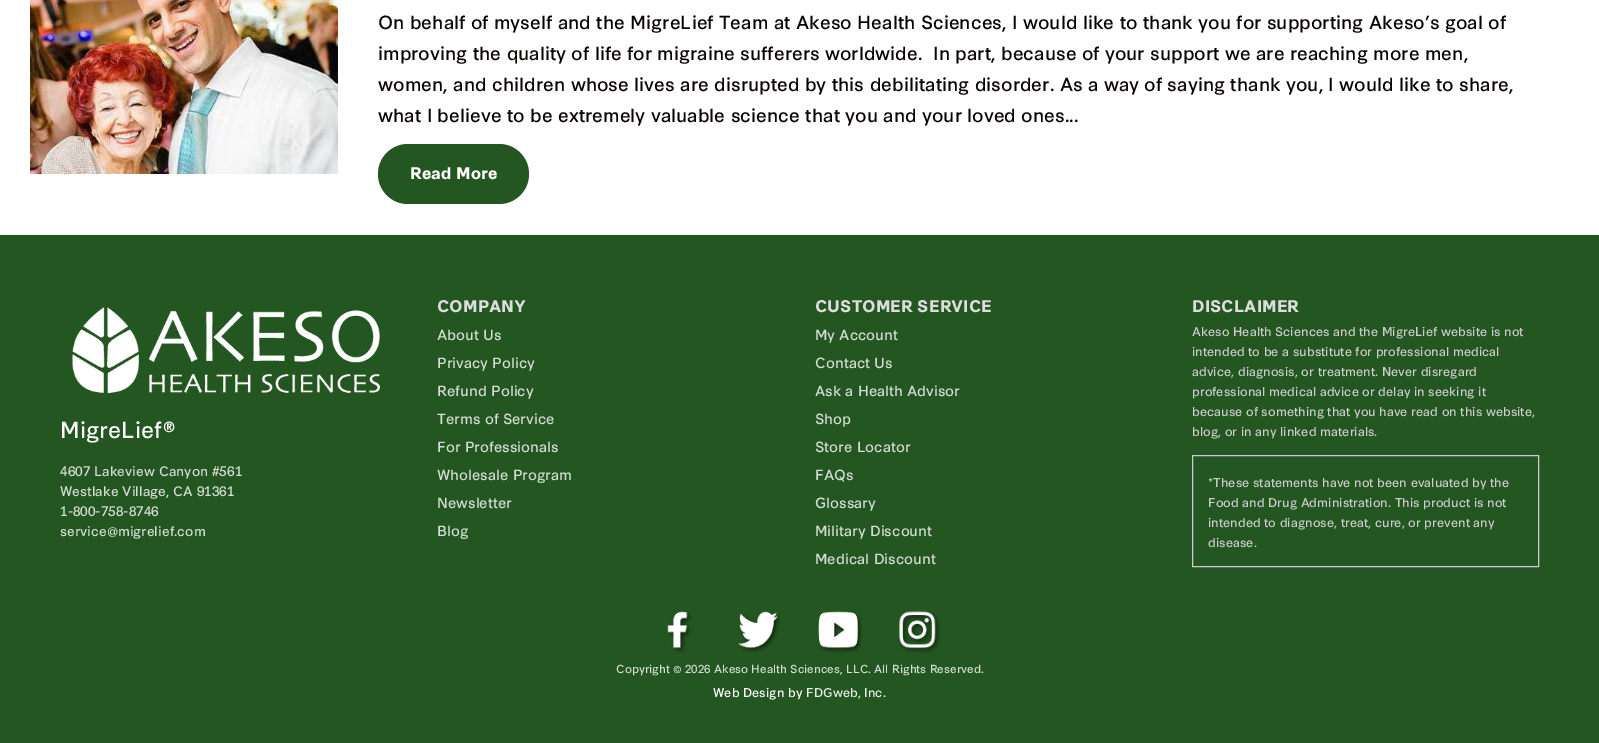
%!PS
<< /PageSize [1599 743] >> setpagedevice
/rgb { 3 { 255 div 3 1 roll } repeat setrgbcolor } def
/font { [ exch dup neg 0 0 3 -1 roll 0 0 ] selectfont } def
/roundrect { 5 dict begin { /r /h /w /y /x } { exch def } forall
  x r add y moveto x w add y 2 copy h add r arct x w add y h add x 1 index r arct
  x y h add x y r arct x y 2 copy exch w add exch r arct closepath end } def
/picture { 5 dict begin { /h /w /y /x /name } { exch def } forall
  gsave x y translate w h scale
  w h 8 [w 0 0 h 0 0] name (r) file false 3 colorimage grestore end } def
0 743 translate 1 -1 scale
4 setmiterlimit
255 255 255 rgb
0 0 1599 743 rectfill
238 238 238 rgb
0 234 1599 1 rectfill
(img/1.rgb) 30 0 308 174 picture
36 86 33 rgb
378 144 151 60 30 roundrect fill
0 235 1599 508 rectfill
(img/2.rgb) 72 307 308 86 picture
204 204 204 rgb
1192.5 455.5 346 111 rectstroke
(img/3.rgb) 667 611 25 42 picture
(img/4.rgb) 738 611 43 42 picture
(img/5.rgb) 818 611 44 42 picture
(img/6.rgb) 898 611 42 42 picture
/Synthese-Regular 18 font
10 3 3 rgb
[
  [(On behalf of myself and the MigreLief Team at Akeso Health Sciences, I would like to thank you for supporting Akeso’s goal of) 378 29]
  [(improving the quality of life for migraine sufferers worldwide.  In part, because of your support we are reaching more men,) 378 60]
  [(women, and children whose lives are disrupted by this debilitating disorder. As a way of saying thank you, I would like to share,) 378 91]
  [(what I believe to be extremely valuable science that you and your loved ones...) 378 122]
] { aload pop moveto show } forall
/Synthese-Bold 16 font
255 255 255 rgb
410 179 moveto (Read More) show
/Synthese-Regular 22 font
60 438 moveto (MigreLief®) show
/Synthese-Regular 13 font
211 221 211 rgb
[
  [(4607 Lakeview Canyon #561) 60 476]
  [(Westlake Village, CA 91361) 60 496]
  [(1-800-758-8746) 60 516]
  [(service@migrelief.com) 60 536]
] { aload pop moveto show } forall
/Synthese-Bold 16 font
221 221 221 rgb
437 312 moveto (COMPANY) show
/Synthese-Regular 14 font
211 221 211 rgb
[
  [(About Us) 437 340]
  [(Privacy Policy) 437 368]
  [(Refund Policy) 437 396]
  [(Terms of Service) 437 424]
  [(For Professionals) 437 452]
  [(Wholesale Program) 437 480]
  [(Newsletter) 437 508]
  [(Blog) 437 536]
] { aload pop moveto show } forall
/Synthese-Bold 16 font
221 221 221 rgb
815 312 moveto (CUSTOMER SERVICE) show
/Synthese-Regular 14 font
211 221 211 rgb
[
  [(My Account) 815 340]
  [(Contact Us) 815 368]
  [(Ask a Health Advisor) 815 396]
  [(Shop) 815 424]
  [(Store Locator) 815 452]
  [(FAQs) 815 480]
  [(Glossary) 815 508]
  [(Military Discount) 815 536]
  [(Medical Discount) 815 564]
] { aload pop moveto show } forall
/Synthese-Bold 16 font
221 221 221 rgb
1192 312 moveto (DISCLAIMER) show
/Synthese-Regular 12 font
204 204 204 rgb
[
  [(Akeso Health Sciences and the MigreLief website is not) 1192 336]
  [(intended to be a substitute for professional medical) 1192 356]
  [(advice, diagnosis, or treatment. Never disregard) 1192 376]
  [(professional medical advice or delay in seeking it) 1192 396]
  [(because of something that you have read on this website,) 1192 416]
  [(blog, or in any linked materials.) 1192 436]
  [(*These statements have not been evaluated by the) 1208 487]
  [(Food and Drug Administration. This product is not) 1208 507]
  [(intended to diagnose, treat, cure, or prevent any) 1208 527]
  [(disease.) 1208 547]
] { aload pop moveto show } forall
/Synthese-Regular 11 font
211 221 211 rgb
616 673 moveto (Copyright © 2026 Akeso Health Sciences, LLC. All Rights Reserved.) show
/Synthese-Regular 12 font
255 255 255 rgb
713 697 moveto (Web Design by) show
233 238 233 rgb
806 697 moveto (FDGweb, Inc.) show
showpage
